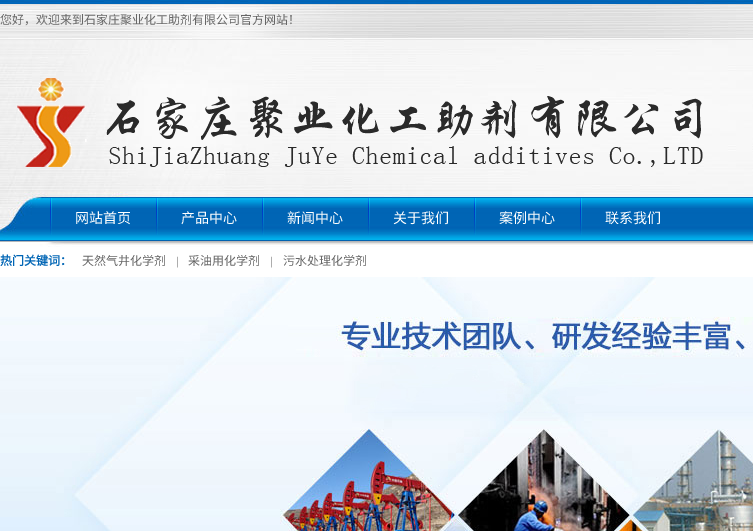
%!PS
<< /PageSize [753 531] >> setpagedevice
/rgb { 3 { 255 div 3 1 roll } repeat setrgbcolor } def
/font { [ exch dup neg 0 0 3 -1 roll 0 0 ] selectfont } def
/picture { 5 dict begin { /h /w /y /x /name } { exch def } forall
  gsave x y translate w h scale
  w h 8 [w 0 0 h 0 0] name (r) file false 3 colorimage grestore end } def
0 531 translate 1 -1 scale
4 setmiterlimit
255 255 255 rgb
0 0 753 531 rectfill
(img/1.rgb) 0 0 753 247 picture
(img/2.rgb) 17 78 686 89 picture
(img/3.rgb) 50 198 2 37 picture
(img/3.rgb) 156 198 2 37 picture
(img/3.rgb) 262 198 2 37 picture
(img/3.rgb) 368 198 2 37 picture
(img/3.rgb) 474 198 2 37 picture
(img/3.rgb) 580 198 2 37 picture
(img/4.rgb) 0 277 753 254 picture
/NotoSansCJKSC-Regular 12 font
102 102 102 rgb
0 24 moveto (您好，欢迎来到石家庄聚业化工助剂有限公司官方网站！) show
/NotoSansCJKSC-Regular 14 font
255 255 255 rgb
[
  [(网站首页) 75 223]
  [(产品中心) 181 223]
  [(新闻中心) 287 223]
  [(关于我们) 393 223]
  [(案例中心) 499 223]
  [(联系我们) 605 223]
] { aload pop moveto show } forall
/NotoSansCJKSC-Bold 12 font
0 101 181 rgb
0 265 moveto (热门关键词：) show
/NotoSansCJKSC-Regular 12 font
102 102 102 rgb
82 265 moveto (天然气井化学剂) show
/LiberationSerif-Regular 12 font
176 265 moveto (|) show
/NotoSansCJKSC-Regular 12 font
188 265 moveto (采油用化学剂) show
/LiberationSerif-Regular 12 font
270 265 moveto (|) show
/NotoSansCJKSC-Regular 12 font
283 265 moveto (污水处理化学剂) show
showpage
